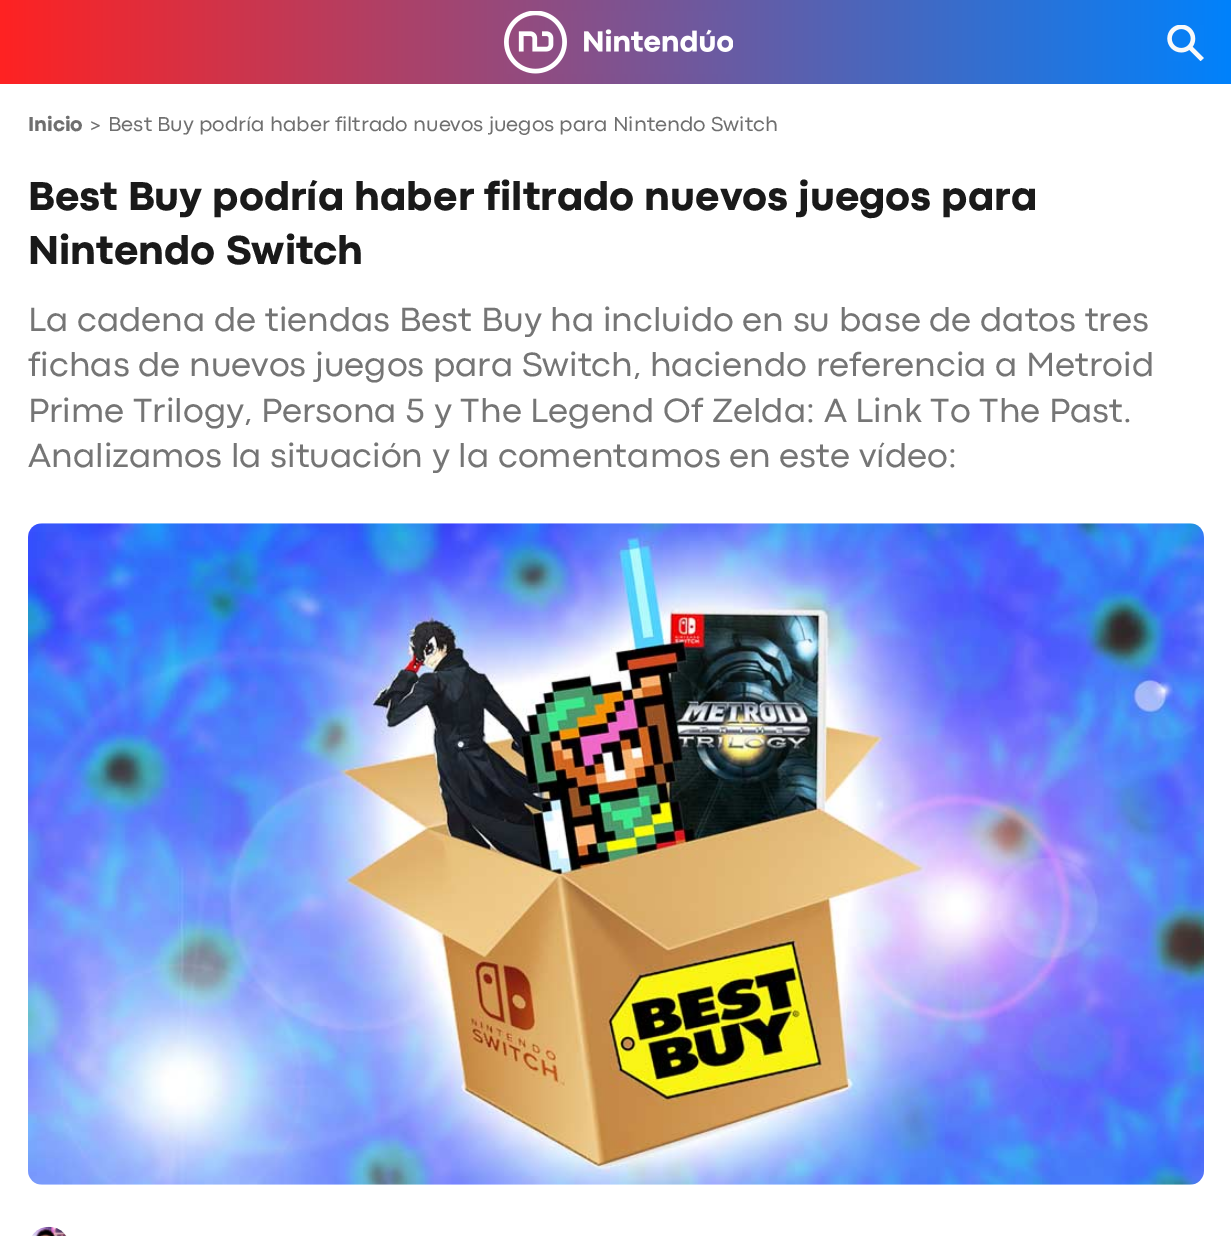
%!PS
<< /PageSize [1231 1236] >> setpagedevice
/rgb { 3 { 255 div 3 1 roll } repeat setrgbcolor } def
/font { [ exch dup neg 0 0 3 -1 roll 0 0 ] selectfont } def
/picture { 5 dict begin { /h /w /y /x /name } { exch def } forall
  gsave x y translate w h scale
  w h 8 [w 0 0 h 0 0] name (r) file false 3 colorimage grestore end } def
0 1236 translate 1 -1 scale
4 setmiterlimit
255 255 255 rgb
0 0 1231 1236 rectfill
gsave 0 0 moveto 1231 0 lineto 1231 84 lineto 0 84 lineto closepath clip newpath
<< /ShadingType 2 /ColorSpace /DeviceRGB /Coords [0 42 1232 42] /Extend [true true] /Function << /FunctionType 2 /Domain [0 1] /C0 [1 0.133 0.133] /C1 [0 0.51 0.988] /N 1 >> >> shfill grestore
(img/1.rgb) 504 11 229 63 picture
(img/2.rgb) 1167 25 37 36 picture
(img/3.rgb) 28 523 1176 662 picture
(img/4.rgb) 32 1226 35 10 picture
/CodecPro-ExtraBold 21 font
111 111 111 rgb
28 131 moveto (Inicio) show
/CodecPro-Regular 21 font
90 131 moveto (>) show
108 131 moveto (Best Buy podría haber filtrado nuevos juegos para Nintendo Switch) show
/CodecPro-ExtraBold 42 font
26 26 26 rgb
28 210 moveto (Best Buy podría haber filtrado nuevos juegos para) show
28 264 moveto (Nintendo Switch) show
/CodecPro-Regular 35 font
117 117 117 rgb
[
  [(La cadena de tiendas Best Buy ha incluido en su base de datos tres) 28 331]
  [(fichas de nuevos juegos para Switch, haciendo referencia a Metroid) 28 376]
  [(Prime Trilogy, Persona 5 y The Legend Of Zelda: A Link To The Past.) 28 422]
  [(Analizamos la situación y la comentamos en este vídeo:) 28 467]
] { aload pop moveto show } forall
showpage
